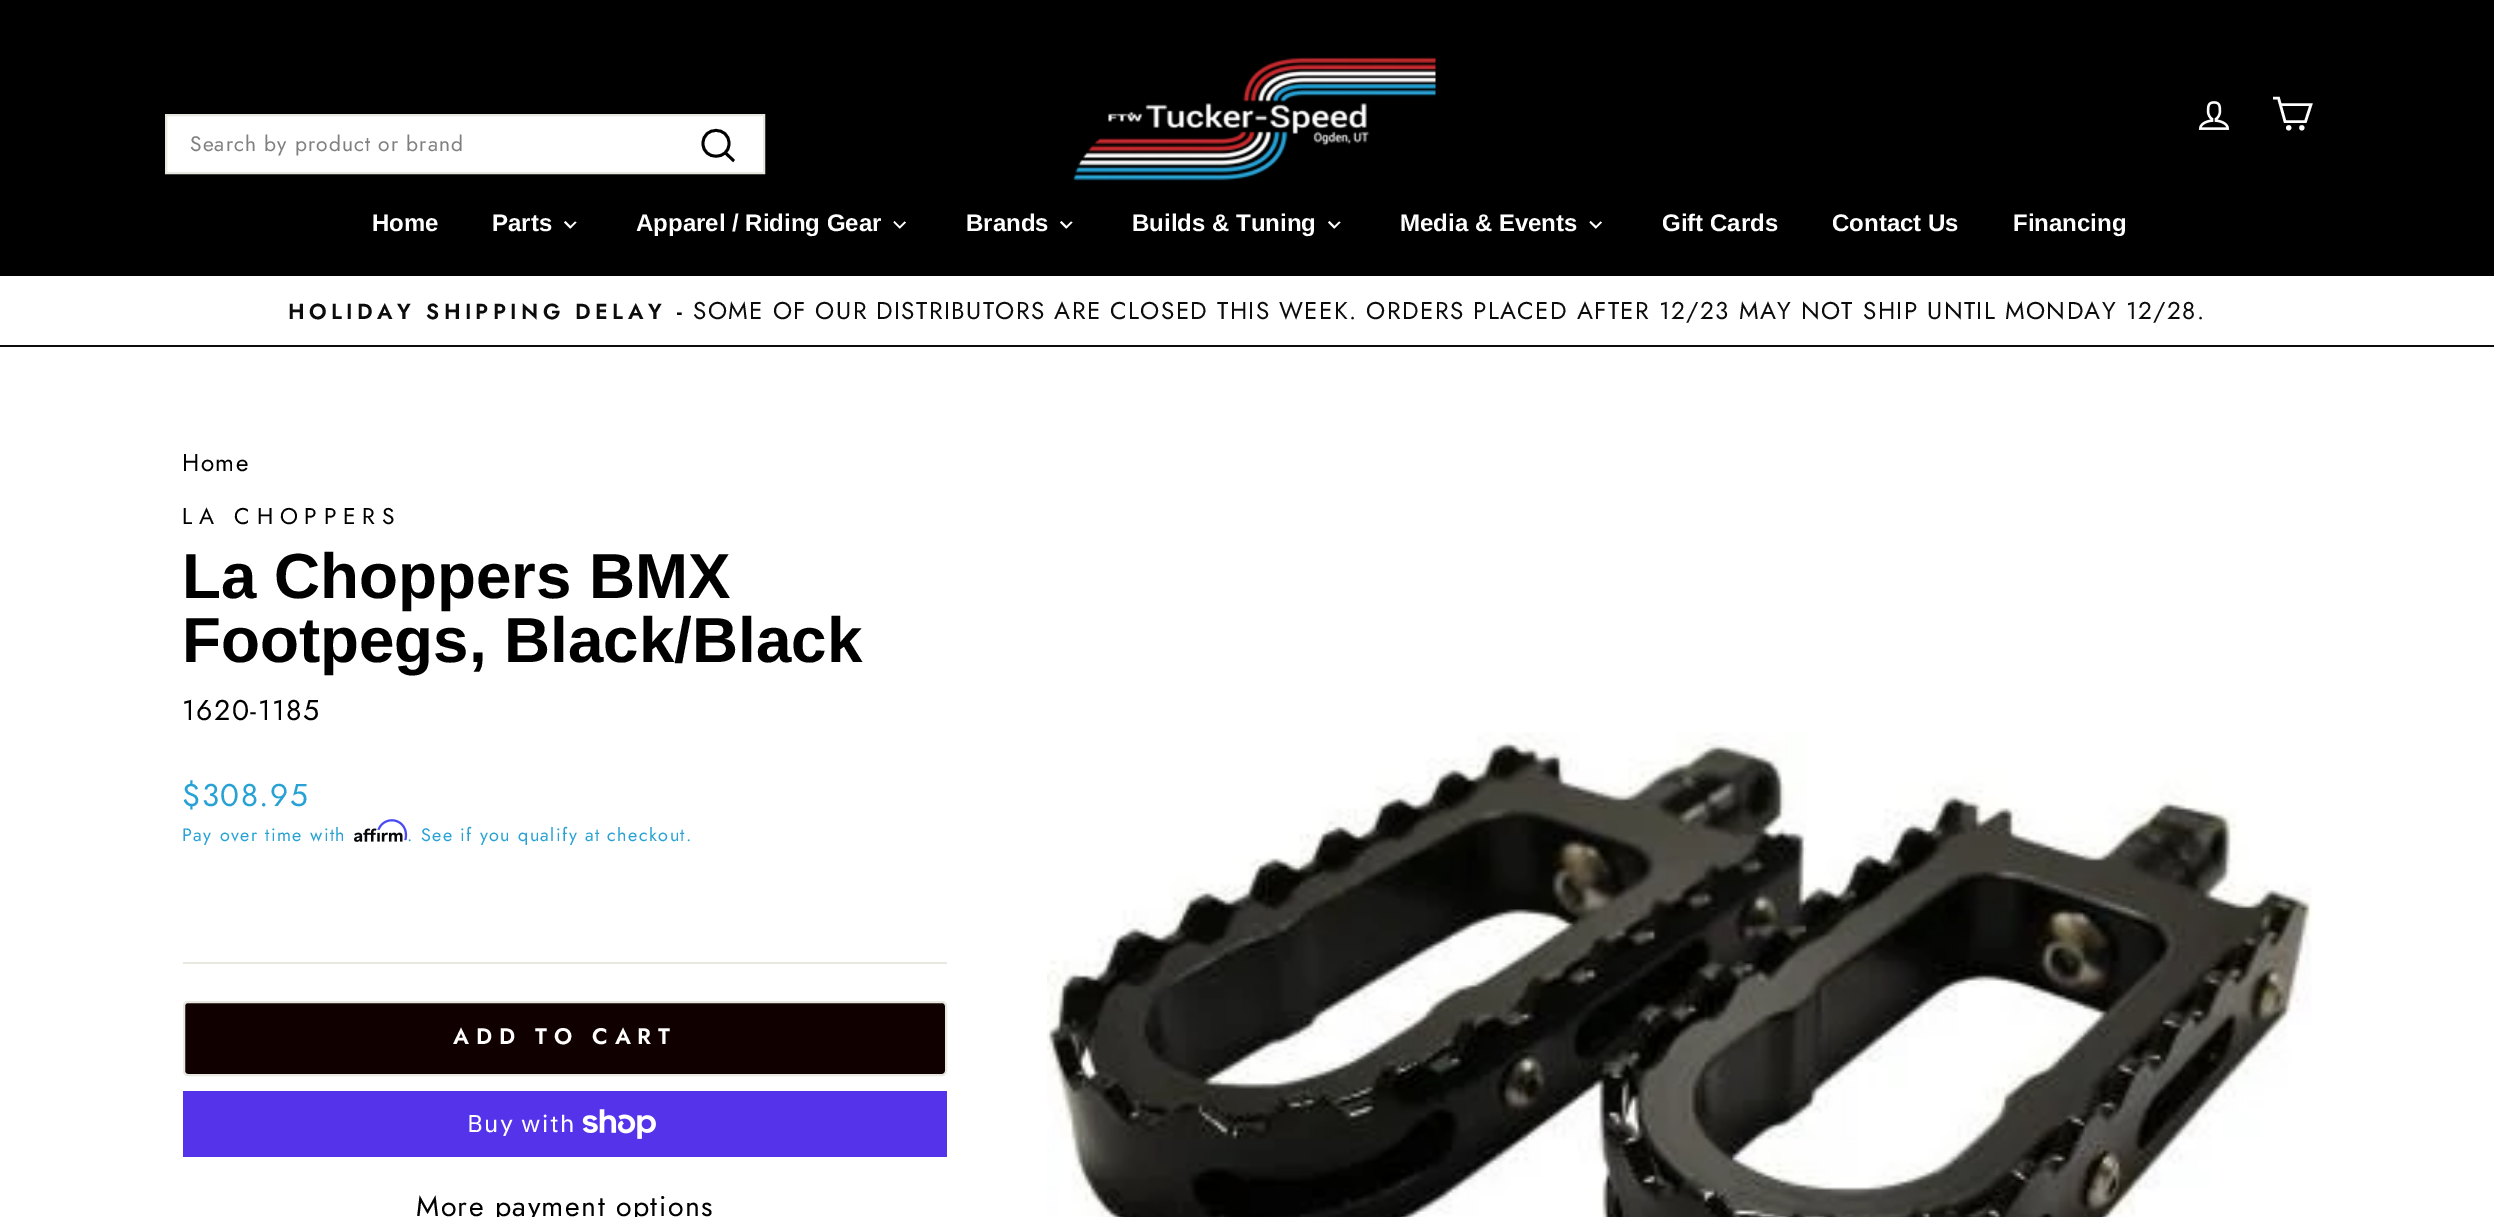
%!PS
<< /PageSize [2494 1217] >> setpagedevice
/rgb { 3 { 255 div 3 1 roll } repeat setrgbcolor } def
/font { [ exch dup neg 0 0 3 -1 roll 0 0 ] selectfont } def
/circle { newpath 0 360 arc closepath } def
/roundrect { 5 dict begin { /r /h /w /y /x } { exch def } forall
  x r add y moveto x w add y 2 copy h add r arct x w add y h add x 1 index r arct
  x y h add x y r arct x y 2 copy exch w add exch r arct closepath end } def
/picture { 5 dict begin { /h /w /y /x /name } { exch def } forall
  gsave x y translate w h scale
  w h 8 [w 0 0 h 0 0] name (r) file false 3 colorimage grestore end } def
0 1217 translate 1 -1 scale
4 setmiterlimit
255 255 255 rgb
0 0 2494 1217 rectfill
0 0 0 rgb
0 0 2494 276 rectfill
(img/1.rgb) 1073 57 363 124 picture
(img/2.rgb) 2198 101 32 29 picture
255 255 255 rgb
2.6 setlinewidth
2280 104.5 moveto 2311 104.5 lineto 2305.5 121.5 lineto 2285 121.5 lineto 2278.5 98 lineto 2273 98 lineto stroke
2288.7 127.8 1.3 circle stroke
2301.8 127.8 1.3 circle stroke
166 115 moveto 764 115 lineto 764 173 lineto 166 173 lineto closepath gsave fill grestore
232 232 225 rgb
2 setlinewidth
stroke
0 0 0 rgb
2.8 setlinewidth
729 143.5 moveto 729 160.5 703 160.5 703 143.5 curveto 703 126 729 126 729 143.5 curveto closepath 734 161 moveto 725.5 153 lineto stroke
255 255 255 rgb
575 221.5 moveto 576.5 222.5 lineto 570.5 228.5 lineto 569.5 227 lineto closepath fill
565.5 221 moveto 571.5 227 lineto 570 228.5 lineto 564 222.5 lineto closepath fill
904.5 221.5 moveto 906 222.5 lineto 900 228.5 lineto 899 227 lineto closepath fill
894.5 221 moveto 900.5 227 lineto 899.5 228.5 lineto 893.5 222.5 lineto closepath fill
1071 221.5 moveto 1072.5 222.5 lineto 1066.5 228.5 lineto 1065.5 227 lineto closepath fill
1061.5 221 moveto 1067.5 227 lineto 1066 228.5 lineto 1060 222.5 lineto closepath fill
1339 221.5 moveto 1340.5 222.5 lineto 1334.5 228.5 lineto 1333.5 227 lineto closepath fill
1329.5 221 moveto 1335.5 227 lineto 1334 228.5 lineto 1328 222.5 lineto closepath fill
1600.5 221.5 moveto 1602 222.5 lineto 1596 228.5 lineto 1595 227 lineto closepath fill
1590.5 221 moveto 1597 227 lineto 1595.5 228.5 lineto 1589.5 222.5 lineto closepath fill
13 12 12 rgb
0 345 2494 2 rectfill
(img/4.rgb) 354 828 49 14 picture
(img/3.rgb) 377 819 31 22 picture
232 232 225 rgb
183 962 764 2 rectfill
17 0 0 rgb
184 1002 762 73 4 roundrect gsave fill grestore
232 232 225 rgb
2 setlinewidth
stroke
84 51 235 rgb
183 1091 764 66 rectfill
(img/5.rgb) 582 1109 74 30 picture
(img/6.rgb) 1047 732 1265 485 picture
/Jost-Regular 21 font
128 128 128 rgb
190 151 moveto 1.05 0 (Search by product or brand) ashow
/Arimo-Bold 24 font
255 254 254 rgb
[
  [(Home) 372 231]
  [(Parts) 492 231]
  [(Apparel / Riding Gear) 636 231]
  [(Brands) 966 231]
  [(Builds & Tuning) 1132 231]
  [(Media & Events) 1400 231]
  [(Gift Cards) 1662 231]
  [(Contact Us) 1832 231]
  [(Financing) 2013 231]
] { aload pop moveto show } forall
/Jost-SemiBold 21.75 font
13 12 12 rgb
288 319 moveto 4.4 0 (HOLIDAY SHIPPING DELAY -) ashow
/Jost-Regular 24.22 font
693 319 moveto 1.42 0 (SOME OF OUR DISTRIBUTORS ARE CLOSED THIS WEEK. ORDERS PLACED AFTER 12/23 MAY NOT SHIP UNTIL MONDAY 12/28.) ashow
0 0 0 rgb
182 471 moveto 1.42 0 (Home) ashow
/Jost-Regular 22.75 font
182 524 moveto 6.75 0 (LA CHOPPERS) ashow
/Arimo-Bold 63.75 font
182 598 moveto (La Choppers BMX) show
182 662 moveto (Footpegs, Black/Black) show
/Jost-Regular 28.5 font
182 720 moveto 1.42 0 (1620-1185) ashow
/Jost-Regular 31.5 font
40 162 212 rgb
182 806 moveto 1.42 0 ($308.95) ashow
/Jost-Regular 18 font
182 841 moveto 1.42 0 (Pay over time with) ashow
407 841 moveto 1.42 0 (. See if you qualify at checkout.) ashow
/Jost-SemiBold 22.5 font
255 254 254 rgb
453 1044 moveto 6.75 0 (ADD TO CART) ashow
/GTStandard-Regular 24 font
467 1132 moveto 1.42 0 (Buy with) ashow
/Jost-Regular 28.5 font
0 0 0 rgb
416 1216 moveto 1.42 0 (More payment options) ashow
showpage
